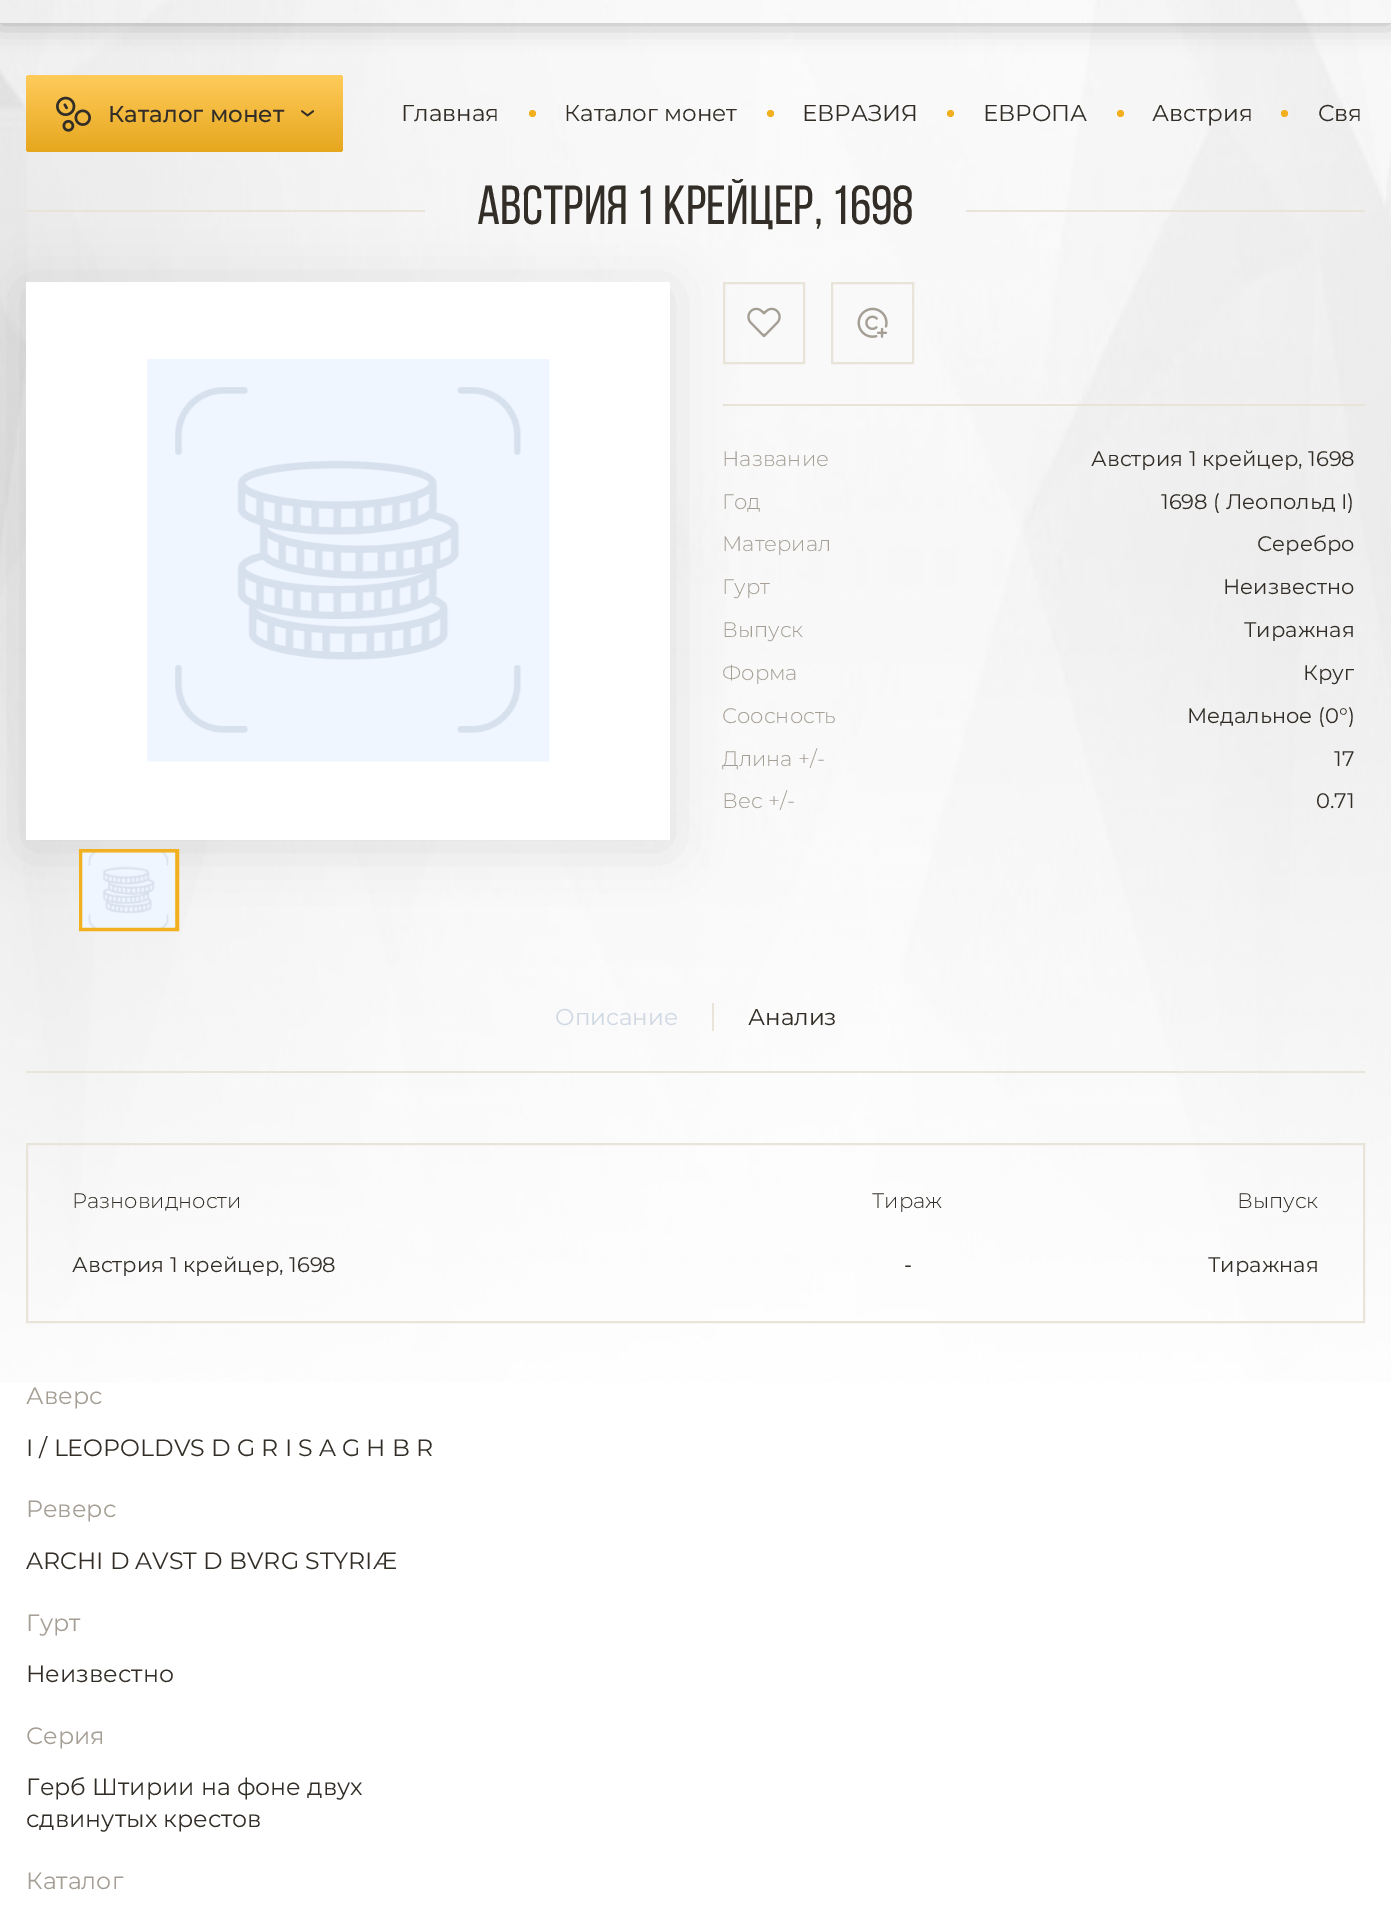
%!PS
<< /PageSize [1391 1917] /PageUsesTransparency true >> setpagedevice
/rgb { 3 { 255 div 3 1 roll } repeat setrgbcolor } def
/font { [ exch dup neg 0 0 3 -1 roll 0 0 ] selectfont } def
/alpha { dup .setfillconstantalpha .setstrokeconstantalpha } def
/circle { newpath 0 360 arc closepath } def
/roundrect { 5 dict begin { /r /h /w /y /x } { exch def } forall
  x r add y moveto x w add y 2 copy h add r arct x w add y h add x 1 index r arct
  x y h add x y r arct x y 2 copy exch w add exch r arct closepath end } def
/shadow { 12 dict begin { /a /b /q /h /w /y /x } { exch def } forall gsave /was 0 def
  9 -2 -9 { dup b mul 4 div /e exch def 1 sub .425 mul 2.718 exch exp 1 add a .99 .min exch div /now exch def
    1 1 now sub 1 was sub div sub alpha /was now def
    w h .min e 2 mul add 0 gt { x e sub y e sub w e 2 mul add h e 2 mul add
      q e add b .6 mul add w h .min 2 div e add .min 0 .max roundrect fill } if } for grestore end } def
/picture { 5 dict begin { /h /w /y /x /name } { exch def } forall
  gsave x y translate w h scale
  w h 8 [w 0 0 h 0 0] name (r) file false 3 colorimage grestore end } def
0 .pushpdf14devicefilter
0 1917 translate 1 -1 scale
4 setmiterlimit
255 255 255 rgb
0 0 1391 1917 rectfill
(img/1.rgb) 0 0 1391 1383 picture
gsave
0 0 moveto 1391 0 lineto 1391 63 lineto 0 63 lineto closepath 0 -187 moveto 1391 -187 lineto 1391 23 lineto 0 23 lineto closepath eoclip newpath
0 0 0 rgb
0 -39 1391 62 0 13 0.3 shadow
grestore
gsave 26 75 317 77 4 roundrect clip newpath
<< /ShadingType 2 /ColorSpace /DeviceRGB /Coords [185 75 185 152] /Extend [true true] /Function << /FunctionType 2 /Domain [0 1] /C0 [1 0.796 0.353] /C1 [0.902 0.655 0.118] /N 1 >> >> shfill grestore
(img/2.rgb) 56 96 35 36 picture
(img/3.rgb) 301 110 14 7 picture
242 175 30 rgb
532.5 113.5 3.5 circle fill
770.5 113.5 3.5 circle fill
950.5 113.5 3.5 circle fill
1120.5 113.5 3.5 circle fill
1284.5 113.5 3.5 circle fill
232 228 217 rgb
723 404 642 2 rectfill
2 setlinewidth
724 283 80 80 rectstroke
(img/6.rgb) 747 307 34 31 picture
0 0 0 rgb
26 289 644 558 0 26 0.1 shadow
[
  [26 210 399 2 232 228 217]
  [966 210 399 2 232 228 217]
  [26 282 644 558 255 255 255]
] { aload pop rgb rectfill } forall
(img/4.rgb) 147 359 403 403 picture
242 175 30 rgb
4 setlinewidth
81 851 96 78 rectstroke
(img/5.rgb) 82 851 94 77 picture
232 228 217 rgb
2 setlinewidth
832 283 81 80 rectstroke
(img/7.rgb) 857 307 31 31 picture
26 1071 1339 2 rectfill
712 1003 2 28 rectfill
27 1144 1337 178 rectstroke
/Montserrat-Medium 23 font
50 46 39 rgb
108 122 moveto (Каталог монет) show
/Montserrat-Regular 23 font
[
  [(Главная) 401 121]
  [(Каталог монет) 564 121]
  [(ЕВРАЗИЯ) 802 121]
  [(ЕВРОПА) 983 121]
  [(Австрия) 1152 121]
  [(Свя) 1318 121]
] { aload pop moveto show } forall
gsave
26 179 1339 66 rectclip
/BebasNeue-Regular 55 font
477 224 moveto (Австрия 1 крейцер, 1698) show
grestore
/Montserrat-Light 21.1 font
164 158 148 rgb
722 466 moveto (Название) show
/Montserrat-Regular 21.1 font
50 46 39 rgb
1091 466 moveto (Австрия 1 крейцер, 1698) show
/Montserrat-Light 21.1 font
164 158 148 rgb
722 509 moveto (Год) show
/Montserrat-Regular 21.1 font
50 46 39 rgb
1161 509 moveto (1698 \( Леопольд I\)) show
/Montserrat-Light 21.1 font
164 158 148 rgb
722 551 moveto (Материал) show
/Montserrat-Regular 21.1 font
50 46 39 rgb
1257 551 moveto (Серебро) show
/Montserrat-Light 21.1 font
164 158 148 rgb
722 594 moveto (Гурт) show
/Montserrat-Regular 21.1 font
50 46 39 rgb
1223 594 moveto (Неизвестно) show
/Montserrat-Light 21.1 font
164 158 148 rgb
722 637 moveto (Выпуск) show
/Montserrat-Regular 21.1 font
50 46 39 rgb
1244 637 moveto (Тиражная) show
/Montserrat-Light 21.1 font
164 158 148 rgb
722 680 moveto (Форма) show
/Montserrat-Regular 21.1 font
50 46 39 rgb
1303 680 moveto (Круг) show
/Montserrat-Light 21.1 font
164 158 148 rgb
722 723 moveto (Соосность) show
/Montserrat-Regular 21.1 font
50 46 39 rgb
1187 723 moveto (Медальное \(0°\)) show
/Montserrat-Light 21.1 font
164 158 148 rgb
722 766 moveto (Длина +/-) show
/Montserrat-Regular 21.1 font
50 46 39 rgb
1334 766 moveto (17) show
/Montserrat-Light 21.1 font
164 158 148 rgb
722 808 moveto (Вес +/-) show
/Montserrat-Regular 21.1 font
50 46 39 rgb
1316 808 moveto (0.71) show
/Montserrat-Regular 23 font
207 216 227 rgb
555 1025 moveto (Описание) show
50 46 39 rgb
748 1025 moveto (Анализ) show
/Montserrat-Light 21.1 font
[
  [(Разновидности) 72 1208]
  [(Тираж) 872 1208]
  [(Выпуск) 1237 1208]
] { aload pop moveto show } forall
/Montserrat-Regular 21.1 font
[
  [(Австрия 1 крейцер, 1698) 72 1272]
  [(-) 904 1272]
  [(Тиражная) 1208 1272]
] { aload pop moveto show } forall
/Montserrat-Regular 23.7 font
164 158 148 rgb
26 1404 moveto (Аверс) show
50 46 39 rgb
26 1456 moveto (I / LEOPOLDVS D G R I S A G H B R) show
164 158 148 rgb
26 1517 moveto (Реверс) show
50 46 39 rgb
26 1569 moveto (ARCHI D AVST D BVRG STYRIÆ) show
164 158 148 rgb
26 1631 moveto (Гурт) show
50 46 39 rgb
26 1682 moveto (Неизвестно) show
164 158 148 rgb
26 1744 moveto (Серия) show
50 46 39 rgb
26 1795 moveto (Герб Штирии на фоне двух) show
26 1827 moveto (сдвинутых крестов) show
164 158 148 rgb
26 1889 moveto (Каталог) show
.poppdf14devicefilter showpage
